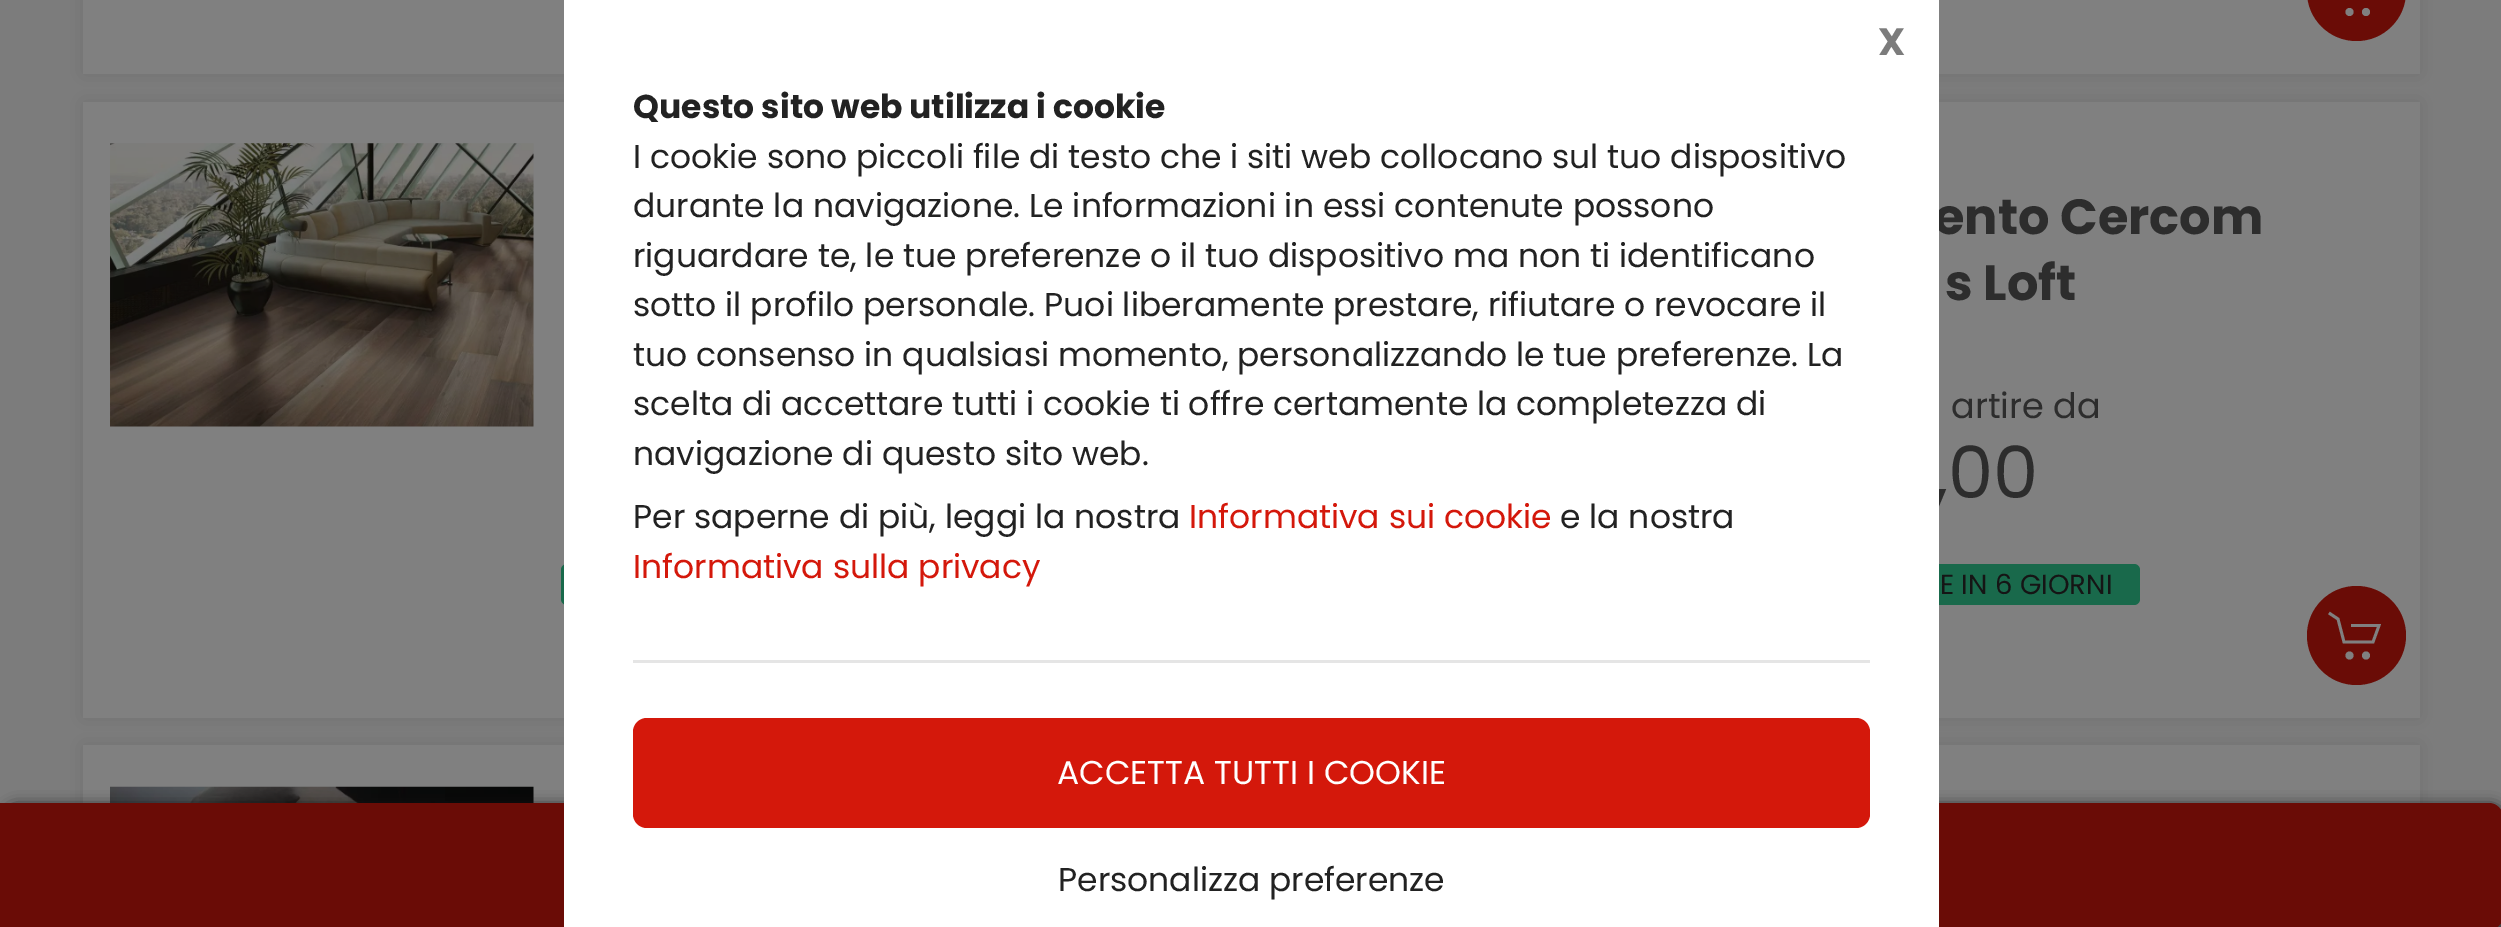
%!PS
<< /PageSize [2501 927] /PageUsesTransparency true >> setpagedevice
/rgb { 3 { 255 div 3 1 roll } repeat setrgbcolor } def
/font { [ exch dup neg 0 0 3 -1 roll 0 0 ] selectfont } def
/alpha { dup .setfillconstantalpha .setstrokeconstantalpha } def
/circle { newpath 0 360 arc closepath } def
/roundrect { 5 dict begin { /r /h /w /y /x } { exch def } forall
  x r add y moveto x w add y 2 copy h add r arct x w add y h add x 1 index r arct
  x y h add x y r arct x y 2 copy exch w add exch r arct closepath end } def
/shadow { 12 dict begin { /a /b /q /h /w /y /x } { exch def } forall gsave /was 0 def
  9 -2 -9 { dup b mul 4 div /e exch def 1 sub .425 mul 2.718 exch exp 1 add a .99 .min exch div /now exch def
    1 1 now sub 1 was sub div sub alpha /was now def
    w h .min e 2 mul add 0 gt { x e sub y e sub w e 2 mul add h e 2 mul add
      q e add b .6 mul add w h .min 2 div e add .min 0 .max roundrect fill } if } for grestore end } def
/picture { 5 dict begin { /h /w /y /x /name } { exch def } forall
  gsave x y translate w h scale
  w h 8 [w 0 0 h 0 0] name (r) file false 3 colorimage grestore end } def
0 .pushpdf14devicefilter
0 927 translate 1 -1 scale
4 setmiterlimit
124 124 124 rgb
0 0 2501 927 rectfill
0 0 0 rgb
83 -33 1127 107 0 11 0.1 shadow
128 128 128 rgb
83 0 481 74 rectfill
0 0 0 rgb
1293 -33 1127 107 0 11 0.1 shadow
128 128 128 rgb
1939 0 481 74 rectfill
106 12 6 rgb
2307 -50 99 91 49.5 roundrect fill
128 128 128 rgb
2349.5 12 4 circle fill
2366 12 4 circle fill
0 0 0 rgb
83 102 1127 616 0 11 0.1 shadow
128 128 128 rgb
83 102 481 616 rectfill
(img/1.rgb) 110 143 424 284 picture
25 105 75 rgb
561 564 377 41 6 roundrect fill
0 0 0 rgb
1293 102 1127 616 0 11 0.1 shadow
128 128 128 rgb
1939 102 481 616 rectfill
25 105 75 rgb
1771 564 369 41 6 roundrect fill
106 12 6 rgb
2356.5 635.5 49.5 circle fill
128 128 128 rgb
2.8 setlinewidth
2329 613 moveto 2338 619 lineto 2344 642 lineto 2373 642 lineto 2379 625.5 lineto 2351 625.5 lineto stroke
2349.5 655.5 4 circle fill
2366 655.5 4 circle fill
0 0 0 rgb
83 745 1127 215 0 11 0.1 shadow
128 128 128 rgb
83 745 481 58 rectfill
(img/2.rgb) 110 786 424 17 picture
0 0 0 rgb
1293 745 1127 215 0 11 0.1 shadow
128 128 128 rgb
1939 745 481 58 rectfill
17 17 17 rgb
3 806 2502 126 14 7 1 shadow
106 12 6 rgb
0 803 moveto 2489 803 lineto 2496.5 803 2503 809.5 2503 817 curveto 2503 916 lineto 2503 923.5 2496.5 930 2489 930 curveto 0 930 lineto closepath fill
/Poppins-Bold 49.5 font
45 45 45 rgb
1934 234 moveto (ento Cercom) show
1945 300 moveto (s Loft) show
/Poppins-Regular 35 font
1951 418 moveto (artire da) show
/Poppins-Regular 72 font
1934 498 moveto (,00) show
255 255 255 rgb
564 0 1375 927 rectfill
/Poppins-Bold 38 font
124 124 124 rgb
1878 55 moveto (X) show
/Poppins-Regular 33 font
212 24 11 rgb
633 578 moveto (Informativa sulla privacy) show
34 34 34 rgb
1560 528 moveto (e la nostra) show
212 24 11 rgb
1189 528 moveto (Informativa sui cookie) show
34 34 34 rgb
[
  [(Per saperne di più, leggi la nostra) 633 528]
  [(navigazione di questo sito web.) 633 465]
  [(scelta di accettare tutti i cookie ti offre certamente la completezza di) 633 415]
  [(tuo consenso in qualsiasi momento, personalizzando le tue preferenze. La) 633 366]
  [(sotto il profilo personale. Puoi liberamente prestare, rifiutare o revocare il) 633 316]
  [(riguardare te, le tue preferenze o il tuo dispositivo ma non ti identificano) 633 267]
  [(durante la navigazione. Le informazioni in essi contenute possono) 633 217]
  [(I cookie sono piccoli file di testo che i siti web collocano sul tuo dispositivo) 633 168]
] { aload pop moveto show } forall
/Poppins-Bold 33 font
633 118 moveto (Questo sito web utilizza i cookie) show
/Poppins-Regular 33 font
1058 891 moveto (Personalizza preferenze) show
212 24 11 rgb
633 718 1237 110 14 roundrect fill
255 255 255 rgb
1057 784 moveto (ACCETTA TUTTI I COOKIE) show
229 229 229 rgb
633 660 1237 3 rectfill
/Poppins-Regular 27.5 font
21 21 21 rgb
1940 594 moveto (E IN 6 GIORNI) show
.poppdf14devicefilter showpage
